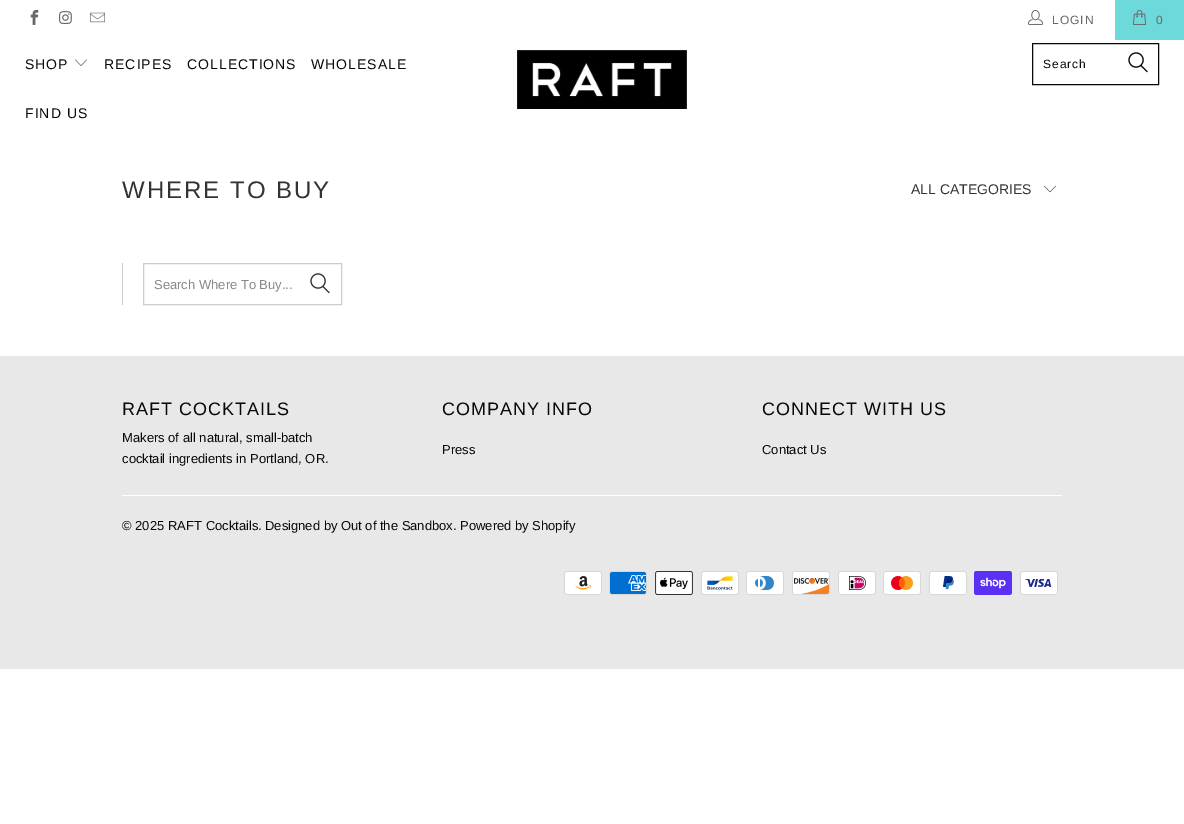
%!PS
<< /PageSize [1184 824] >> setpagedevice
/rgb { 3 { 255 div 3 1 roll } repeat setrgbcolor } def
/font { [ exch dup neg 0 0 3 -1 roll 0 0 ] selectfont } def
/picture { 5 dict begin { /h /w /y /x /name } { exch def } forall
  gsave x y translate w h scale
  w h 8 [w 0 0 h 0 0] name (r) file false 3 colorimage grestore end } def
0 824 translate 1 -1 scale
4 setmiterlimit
255 255 255 rgb
0 0 1184 824 rectfill
(img/1.rgb) 30 9 9 16 picture
(img/2.rgb) 59 11 13 13 picture
(img/3.rgb) 90 12 15 11 picture
(img/4.rgb) 1028 9 15 16 picture
109 217 219 rgb
1115 0 69 40 rectfill
(img/5.rgb) 1133 10 13 15 picture
(img/6.rgb) 75 59 12 7 picture
(img/7.rgb) 517 50 170 59 picture
8 8 8 rgb
1032.5 43.5 126 41 rectstroke
(img/8.rgb) 1128 52 20 21 picture
(img/9.rgb) 1044 185 12 8 picture
204 204 204 rgb
122 263 1 42 rectfill
143.5 263.5 198 41 rectstroke
(img/10.rgb) 310 273 20 21 picture
232 232 232 rgb
0 356 1184 313 rectfill
255 255 255 rgb
122 495 940 1 rectfill
(img/11.rgb) 564 571 38 24 picture
(img/12.rgb) 609 571 38 24 picture
(img/13.rgb) 655 571 38 24 picture
(img/14.rgb) 701 571 38 24 picture
(img/15.rgb) 746 571 38 24 picture
(img/16.rgb) 792 571 38 24 picture
(img/17.rgb) 838 571 38 24 picture
(img/18.rgb) 883 571 38 24 picture
(img/19.rgb) 929 571 38 24 picture
(img/20.rgb) 974 571 38 24 picture
(img/21.rgb) 1020 571 38 24 picture
/LiberationSans-Regular 12 font
102 102 102 rgb
1052 24 moveto 1 0 (LOGIN) ashow
1156 24 moveto 1 0 (0) ashow
/LiberationSans-Regular 14 font
8 8 8 rgb
25 69 moveto 1 0 (SHOP) ashow
104 69 moveto 1 0 (RECIPES) ashow
187 69 moveto 1 0 (COLLECTIONS) ashow
311 69 moveto 1 0 (WHOLESALE) ashow
25 118 moveto 1 0 (FIND US) ashow
/LiberationSans-Regular 12 font
1043 68 moveto 1 0 (Search) ashow
/LiberationSans-Regular 24 font
51 51 51 rgb
122 198 moveto 2 0 (WHERE TO BUY) ashow
/LiberationSans-Regular 14 font
911 194 moveto (ALL CATEGORIES) show
/LiberationSans-Regular 13 font
136 136 136 rgb
154 289 moveto (Search Where To Buy...) show
/LiberationSans-Regular 18 font
8 8 8 rgb
122 415 moveto 1 0 (RAFT COCKTAILS) ashow
/LiberationSans-Regular 13 font
122 442 moveto (Makers of all natural, small-batch) show
122 463 moveto (cocktail ingredients in Portland, OR.) show
/LiberationSans-Regular 18 font
442 415 moveto 1 0 (COMPANY INFO) ashow
/LiberationSans-Regular 13 font
442 454 moveto (Press) show
/LiberationSans-Regular 18 font
762 415 moveto 1 0 (CONNECT WITH US) ashow
/LiberationSans-Regular 13 font
[
  [(Contact Us) 762 454]
  [(© 2025) 122 530]
  [(RAFT Cocktails) 168 530]
  [(.) 258 530]
  [(Designed by Out of the Sandbox) 265 530]
  [(.) 453 530]
  [(Powered by Shopify) 460 530]
] { aload pop moveto show } forall
showpage
